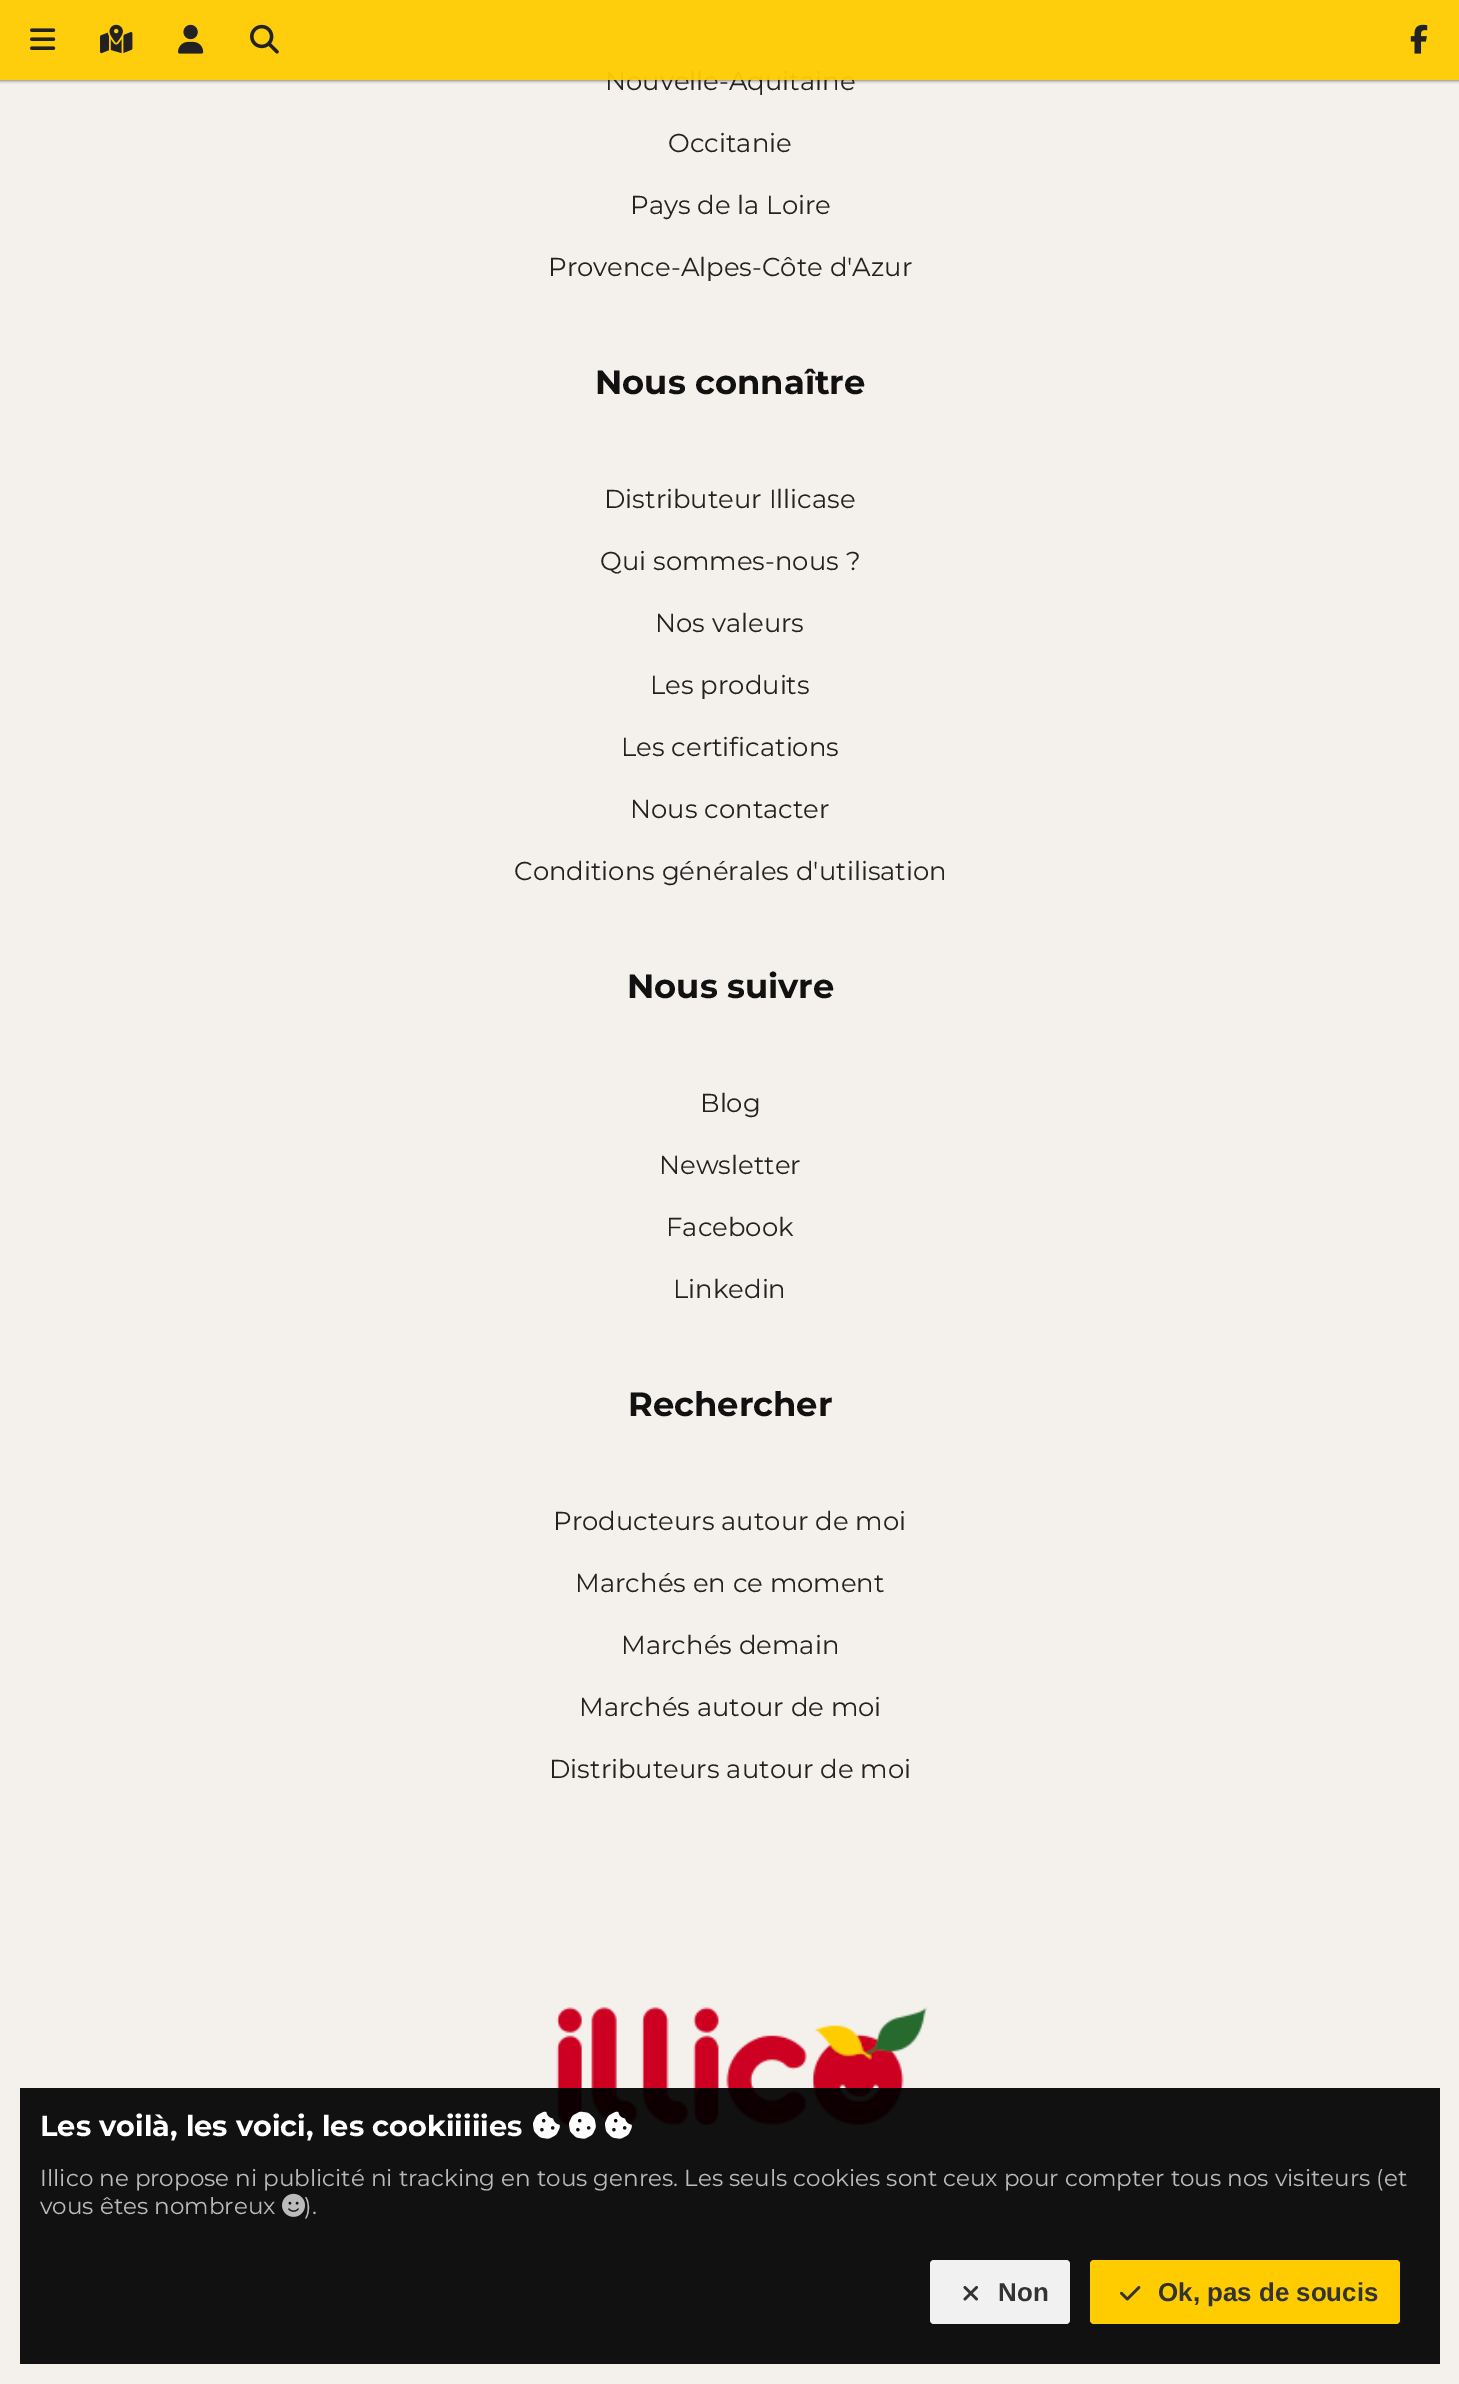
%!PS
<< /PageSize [1459 2384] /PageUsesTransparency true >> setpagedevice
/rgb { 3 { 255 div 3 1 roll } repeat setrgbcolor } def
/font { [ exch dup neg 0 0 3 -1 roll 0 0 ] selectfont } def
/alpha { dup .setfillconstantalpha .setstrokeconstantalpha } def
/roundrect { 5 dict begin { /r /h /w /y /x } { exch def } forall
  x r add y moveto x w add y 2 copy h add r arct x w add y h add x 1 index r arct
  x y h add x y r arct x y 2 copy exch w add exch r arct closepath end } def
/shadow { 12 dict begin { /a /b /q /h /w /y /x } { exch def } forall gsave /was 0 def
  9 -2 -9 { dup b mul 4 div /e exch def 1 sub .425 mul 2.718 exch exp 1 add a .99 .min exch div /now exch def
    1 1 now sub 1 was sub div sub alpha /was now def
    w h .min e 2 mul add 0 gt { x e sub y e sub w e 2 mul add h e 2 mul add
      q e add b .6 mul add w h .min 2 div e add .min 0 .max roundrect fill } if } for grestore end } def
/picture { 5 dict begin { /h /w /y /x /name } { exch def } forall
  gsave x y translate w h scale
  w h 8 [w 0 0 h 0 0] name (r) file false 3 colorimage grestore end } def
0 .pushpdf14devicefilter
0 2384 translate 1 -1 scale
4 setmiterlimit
244 241 236 rgb
0 0 1459 2384 rectfill
gsave
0 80 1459 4 rectclip
68 68 68 rgb
0 0 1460 80 0 2 1 shadow
grestore
(img/6.rgb) 556 2007 371 118 picture
0.93 alpha
0 0 0 rgb
20 2088 1420 276 rectfill
1 alpha
(img/7.rgb) 533 2111 27 28 picture
(img/8.rgb) 569 2111 27 28 picture
(img/9.rgb) 605 2111 27 28 picture
(img/10.rgb) 282 2193 23 24 picture
241 241 241 rgb
930 2260 140 64 4 roundrect fill
(img/11.rgb) 963 2286 15 15 picture
255 204 0 rgb
1090 2260 310 64 4 roundrect fill
(img/12.rgb) 1120 2286 21 15 picture
/Montserrat-Regular 25.9 font
34 34 34 rgb
605 90 moveto (Nouvelle-Aquitaine) show
0.95 alpha
255 204 0 rgb
0 0 1459 80 rectfill
1 alpha
(img/4.rgb) 250 24 29 30 picture
(img/3.rgb) 178 24 26 30 picture
(img/2.rgb) 100 24 33 30 picture
(img/1.rgb) 30 28 26 22 picture
(img/5.rgb) 1410 24 18 30 picture
34 34 34 rgb
[
  [(Occitanie) 668 152]
  [(Pays de la Loire) 630 214]
  [(Provence-Alpes-Côte d'Azur) 548 276]
] { aload pop moveto show } forall
/Montserrat-Bold 33.75 font
17 17 17 rgb
595 394 moveto (Nous connaître) show
/Montserrat-Regular 25.9 font
34 34 34 rgb
[
  [(Distributeur Illicase) 604 508]
  [(Qui sommes-nous ?) 600 570]
  [(Nos valeurs) 655 632]
  [(Les produits) 650 694]
  [(Les certifications) 621 756]
  [(Nous contacter) 630 818]
  [(Conditions générales d'utilisation) 514 880]
] { aload pop moveto show } forall
/Montserrat-Bold 33.75 font
17 17 17 rgb
627 998 moveto (Nous suivre) show
/Montserrat-Regular 25.9 font
34 34 34 rgb
[
  [(Blog) 700 1112]
  [(Newsletter) 659 1174]
  [(Facebook) 666 1236]
  [(Linkedin) 673 1298]
] { aload pop moveto show } forall
/Montserrat-Bold 33.75 font
17 17 17 rgb
628 1416 moveto (Rechercher) show
/Montserrat-Regular 25.9 font
34 34 34 rgb
[
  [(Producteurs autour de moi) 553 1530]
  [(Marchés en ce moment) 575 1592]
  [(Marchés demain) 621 1654]
  [(Marchés autour de moi) 579 1716]
  [(Distributeurs autour de moi) 549 1778]
] { aload pop moveto show } forall
/Montserrat-Bold 28.75 font
255 255 255 rgb
40 2136 moveto (Les voilà, les voici, les cookiiiiies) show
/Montserrat-Regular 23.05 font
187 187 187 rgb
[
  [(Illico ne propose ni publicité ni tracking en tous genres. Les seuls cookies sont ceux pour compter tous nos visiteurs \(et) 40 2186]
  [(vous êtes nombreux) 40 2214]
  [(\).) 304 2214]
] { aload pop moveto show } forall
/LiberationSans-Bold 25.9 font
51 51 51 rgb
998 2301 moveto (Non) show
1158 2301 moveto (Ok, pas de soucis) show
.poppdf14devicefilter showpage
